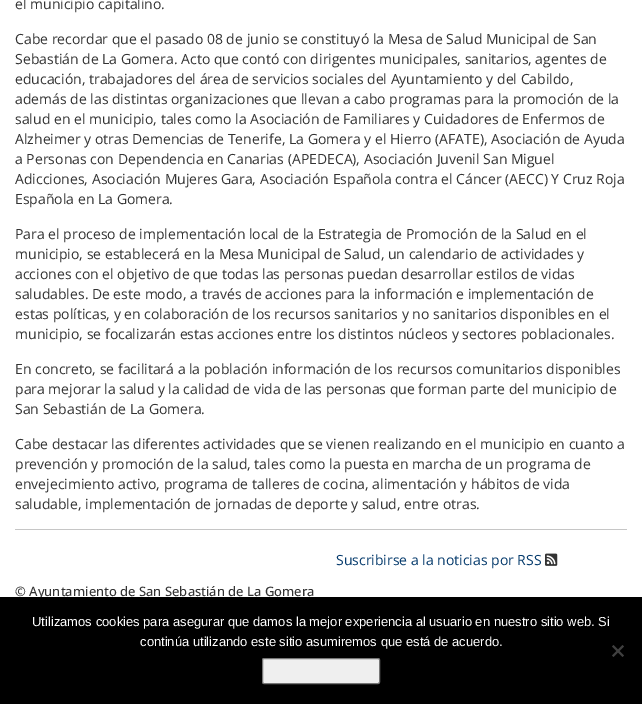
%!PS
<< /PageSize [642 704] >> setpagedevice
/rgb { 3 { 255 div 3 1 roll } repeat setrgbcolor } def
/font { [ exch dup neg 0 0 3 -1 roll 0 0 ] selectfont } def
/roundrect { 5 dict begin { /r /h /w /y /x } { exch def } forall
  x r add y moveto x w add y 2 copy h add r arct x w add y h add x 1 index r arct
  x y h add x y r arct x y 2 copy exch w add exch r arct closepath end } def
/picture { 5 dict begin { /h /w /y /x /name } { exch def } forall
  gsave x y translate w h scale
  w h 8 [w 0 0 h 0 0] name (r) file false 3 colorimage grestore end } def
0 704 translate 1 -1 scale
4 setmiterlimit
255 255 255 rgb
0 0 642 704 rectfill
198 198 198 rgb
15 529 612 1 rectfill
(img/1.rgb) 545 553 13 13 picture
/OpenSans-Regular 14 font
51 51 51 rgb
[
  [(el municipio capitalino.) 15 9]
  [(Cabe recordar que el pasado 08 de junio se constituyó la Mesa de Salud Municipal de San) 15 44]
  [(Sebastián de La Gomera. Acto que contó con dirigentes municipales, sanitarios, agentes de) 15 64]
  [(educación, trabajadores del área de servicios sociales del Ayuntamiento y del Cabildo,) 15 84]
  [(además de las distintas organizaciones que llevan a cabo programas para la promoción de la) 15 104]
  [(salud en el municipio, tales como la Asociación de Familiares y Cuidadores de Enfermos de) 15 124]
  [(Alzheimer y otras Demencias de Tenerife, La Gomera y el Hierro \(AFATE\), Asociación de Ayuda) 15 144]
  [(a Personas con Dependencia en Canarias \(APEDECA\), Asociación Juvenil San Miguel) 15 164]
  [(Adicciones, Asociación Mujeres Gara, Asociación Española contra el Cáncer \(AECC\) Y Cruz Roja) 15 184]
  [(Española en La Gomera.) 15 204]
  [(Para el proceso de implementación local de la Estrategia de Promoción de la Salud en el) 15 239]
  [(municipio, se establecerá en la Mesa Municipal de Salud, un calendario de actividades y) 15 259]
  [(acciones con el objetivo de que todas las personas puedan desarrollar estilos de vidas) 15 279]
  [(saludables. De este modo, a través de acciones para la información e implementación de) 15 299]
  [(estas políticas, y en colaboración de los recursos sanitarios y no sanitarios disponibles en el) 15 319]
  [(municipio, se focalizarán estas acciones entre los distintos núcleos y sectores poblacionales.) 15 339]
  [(En concreto, se facilitará a la población información de los recursos comunitarios disponibles) 15 374]
  [(para mejorar la salud y la calidad de vida de las personas que forman parte del municipio de) 15 394]
  [(San Sebastián de La Gomera.) 15 414]
  [(Cabe destacar las diferentes actividades que se vienen realizando en el municipio en cuanto a) 15 449]
  [(prevención y promoción de la salud, tales como la puesta en marcha de un programa de) 15 469]
  [(envejecimiento activo, programa de talleres de cocina, alimentación y hábitos de vida) 15 489]
  [(saludable, implementación de jornadas de deporte y salud, entre otras.) 15 509]
] { aload pop moveto show } forall
6 59 109 rgb
336 565 moveto (Suscribirse a la noticias por RSS) show
/OpenSans-Medium 13 font
51 51 51 rgb
15 596 moveto (© Ayuntamiento de San Sebastián de La Gomera) show
0 0 0 rgb
0 597 642 107 rectfill
/LiberationSans-Regular 13 font
255 255 255 rgb
32 626 moveto (Utilizamos cookies para asegurar que damos la mejor experiencia al usuario en nuestro sitio web. Si) show
140 646 moveto (continúa utilizando este sitio asumiremos que está de acuerdo.) show
64 64 64 rgb
622.5 645 moveto 624 646.5 lineto 613.5 657 lineto 612 655.5 lineto closepath fill
612 646.5 moveto 613.5 645 lineto 624 655.5 lineto 622.5 657 lineto closepath fill
239 239 239 rgb
262.5 658.5 117 25 1.5 roundrect gsave fill grestore
118 118 118 rgb
stroke
showpage
